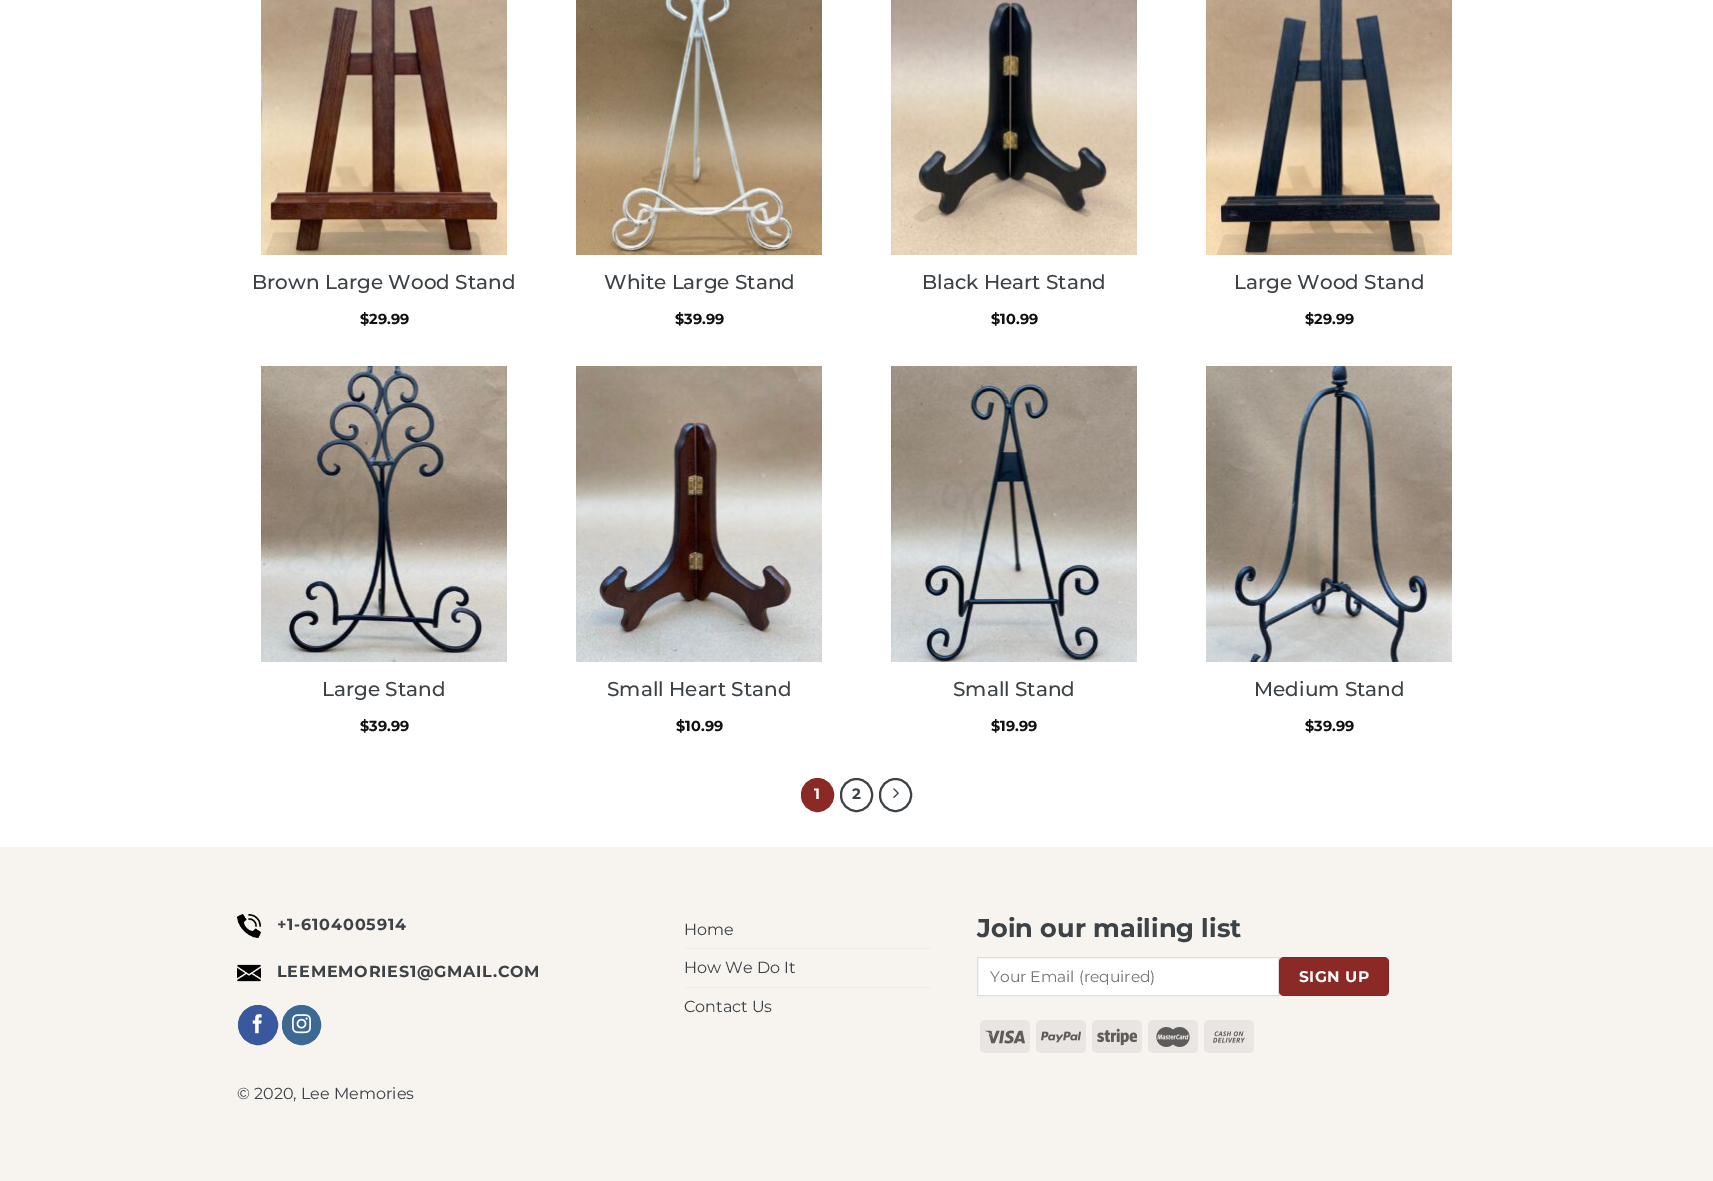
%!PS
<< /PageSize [1713 1181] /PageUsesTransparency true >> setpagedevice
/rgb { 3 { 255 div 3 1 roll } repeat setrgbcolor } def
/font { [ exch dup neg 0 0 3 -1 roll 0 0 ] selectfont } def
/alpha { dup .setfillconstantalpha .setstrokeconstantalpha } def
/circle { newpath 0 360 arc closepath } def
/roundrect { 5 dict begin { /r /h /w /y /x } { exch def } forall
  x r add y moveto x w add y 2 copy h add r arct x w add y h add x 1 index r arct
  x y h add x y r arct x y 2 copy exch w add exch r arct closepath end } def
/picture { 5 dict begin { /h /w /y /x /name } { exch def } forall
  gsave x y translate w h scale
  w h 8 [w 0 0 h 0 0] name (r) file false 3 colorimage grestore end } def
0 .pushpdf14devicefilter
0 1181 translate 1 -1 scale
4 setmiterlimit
255 255 255 rgb
0 0 1713 1181 rectfill
(img/1.rgb) 261 0 246 255 picture
(img/2.rgb) 576 0 246 255 picture
(img/3.rgb) 891 0 246 255 picture
(img/4.rgb) 1206 0 246 255 picture
(img/5.rgb) 261 366 246 296 picture
(img/6.rgb) 576 366 246 296 picture
(img/7.rgb) 891 366 246 296 picture
(img/8.rgb) 1206 366 246 296 picture
139 41 38 rgb
802 779 31 32 15.5 roundrect gsave fill grestore
2 setlinewidth
stroke
61 66 70 rgb
841 779 31 32 15.5 roundrect stroke
880 779 31 32 15.5 roundrect stroke
(img/9.rgb) 893 788 6 11 picture
247 244 240 rgb
0 847 1713 334 rectfill
(img/10.rgb) 237 914 24 24 picture
(img/11.rgb) 237 964 24 18 picture
58 88 157 rgb
258 1025 19.5 circle gsave fill grestore
1 setlinewidth
stroke
(img/12.rgb) 252 1014 10 20 picture
59 105 148 rgb
282.5 1005.5 38 39 19 roundrect gsave fill grestore
stroke
(img/13.rgb) 292 1014 19 20 picture
236 236 236 rgb
684 948 248 1 rectfill
684 987 248 1 rectfill
255 255 255 rgb
977.5 957.5 moveto 1278.5 957.5 lineto 1278.5 995.5 lineto 977.5 995.5 lineto closepath gsave fill grestore
221 221 221 rgb
stroke
139 41 38 rgb
1279 957 110 39 5 roundrect fill
0.05 alpha
0 0 0 rgb
1279.5 957.5 109 38 rectstroke
1 alpha
232 229 226 rgb
980 1020 50 33 5 roundrect fill
(img/14.rgb) 985 1030 40 14 picture
1036 1020 50 33 5 roundrect fill
(img/15.rgb) 1041 1031 40 12 picture
1092 1020 50 33 5 roundrect fill
(img/16.rgb) 1097 1028 40 18 picture
1148 1020 50 33 5 roundrect fill
(img/17.rgb) 1156 1027 34 20 picture
1204 1020 50 33 5 roundrect fill
(img/18.rgb) 1213 1031 32 12 picture
/Montserrat-Medium 20 font
61 66 70 rgb
252 289 moveto (Brown Large Wood Stand) show
/Montserrat-Bold 14.5 font
17 17 17 rgb
360 324 moveto ($29.99) show
/Montserrat-Medium 20 font
61 66 70 rgb
604 289 moveto (White Large Stand) show
/Montserrat-Bold 14.5 font
17 17 17 rgb
675 324 moveto ($39.99) show
/Montserrat-Medium 20 font
61 66 70 rgb
922 289 moveto (Black Heart Stand) show
/Montserrat-Bold 14.5 font
17 17 17 rgb
991 324 moveto ($10.99) show
/Montserrat-Medium 20 font
61 66 70 rgb
1234 289 moveto (Large Wood Stand) show
/Montserrat-Bold 14.5 font
17 17 17 rgb
1305 324 moveto ($29.99) show
/Montserrat-Medium 20 font
61 66 70 rgb
322 696 moveto (Large Stand) show
/Montserrat-Bold 14.5 font
17 17 17 rgb
360 731 moveto ($39.99) show
/Montserrat-Medium 20 font
61 66 70 rgb
607 696 moveto (Small Heart Stand) show
/Montserrat-Bold 14.5 font
17 17 17 rgb
676 731 moveto ($10.99) show
/Montserrat-Medium 20 font
61 66 70 rgb
953 696 moveto (Small Stand) show
/Montserrat-Bold 14.5 font
17 17 17 rgb
991 731 moveto ($19.99) show
/Montserrat-Medium 20 font
61 66 70 rgb
1254 696 moveto (Medium Stand) show
/Montserrat-Bold 14.5 font
17 17 17 rgb
1305 731 moveto ($39.99) show
/Montserrat-Bold 15 font
255 255 255 rgb
814 799 moveto (1) show
61 66 70 rgb
852 799 moveto (2) show
/Montserrat-Bold 16 font
277 930 moveto 0.8 0 (+1-6104005914) ashow
277 977 moveto 0.8 0 (LEEMEMORIES1@GMAIL.COM) ashow
/Montserrat-Regular 16 font
[
  [(© 2020, Lee Memories) 237 1099]
  [(Home) 684 935]
  [(How We Do It) 684 973]
  [(Contact Us) 684 1012]
] { aload pop moveto show } forall
/Montserrat-Bold 25.6 font
977 937 moveto (Join our mailing list) show
/Montserrat-Regular 15.5 font
117 117 117 rgb
990 982 moveto (Your Email \(required\)) show
/Montserrat-Bold 15.5 font
255 255 255 rgb
1299 982 moveto 0.5 0 (SIGN UP) ashow
.poppdf14devicefilter showpage
